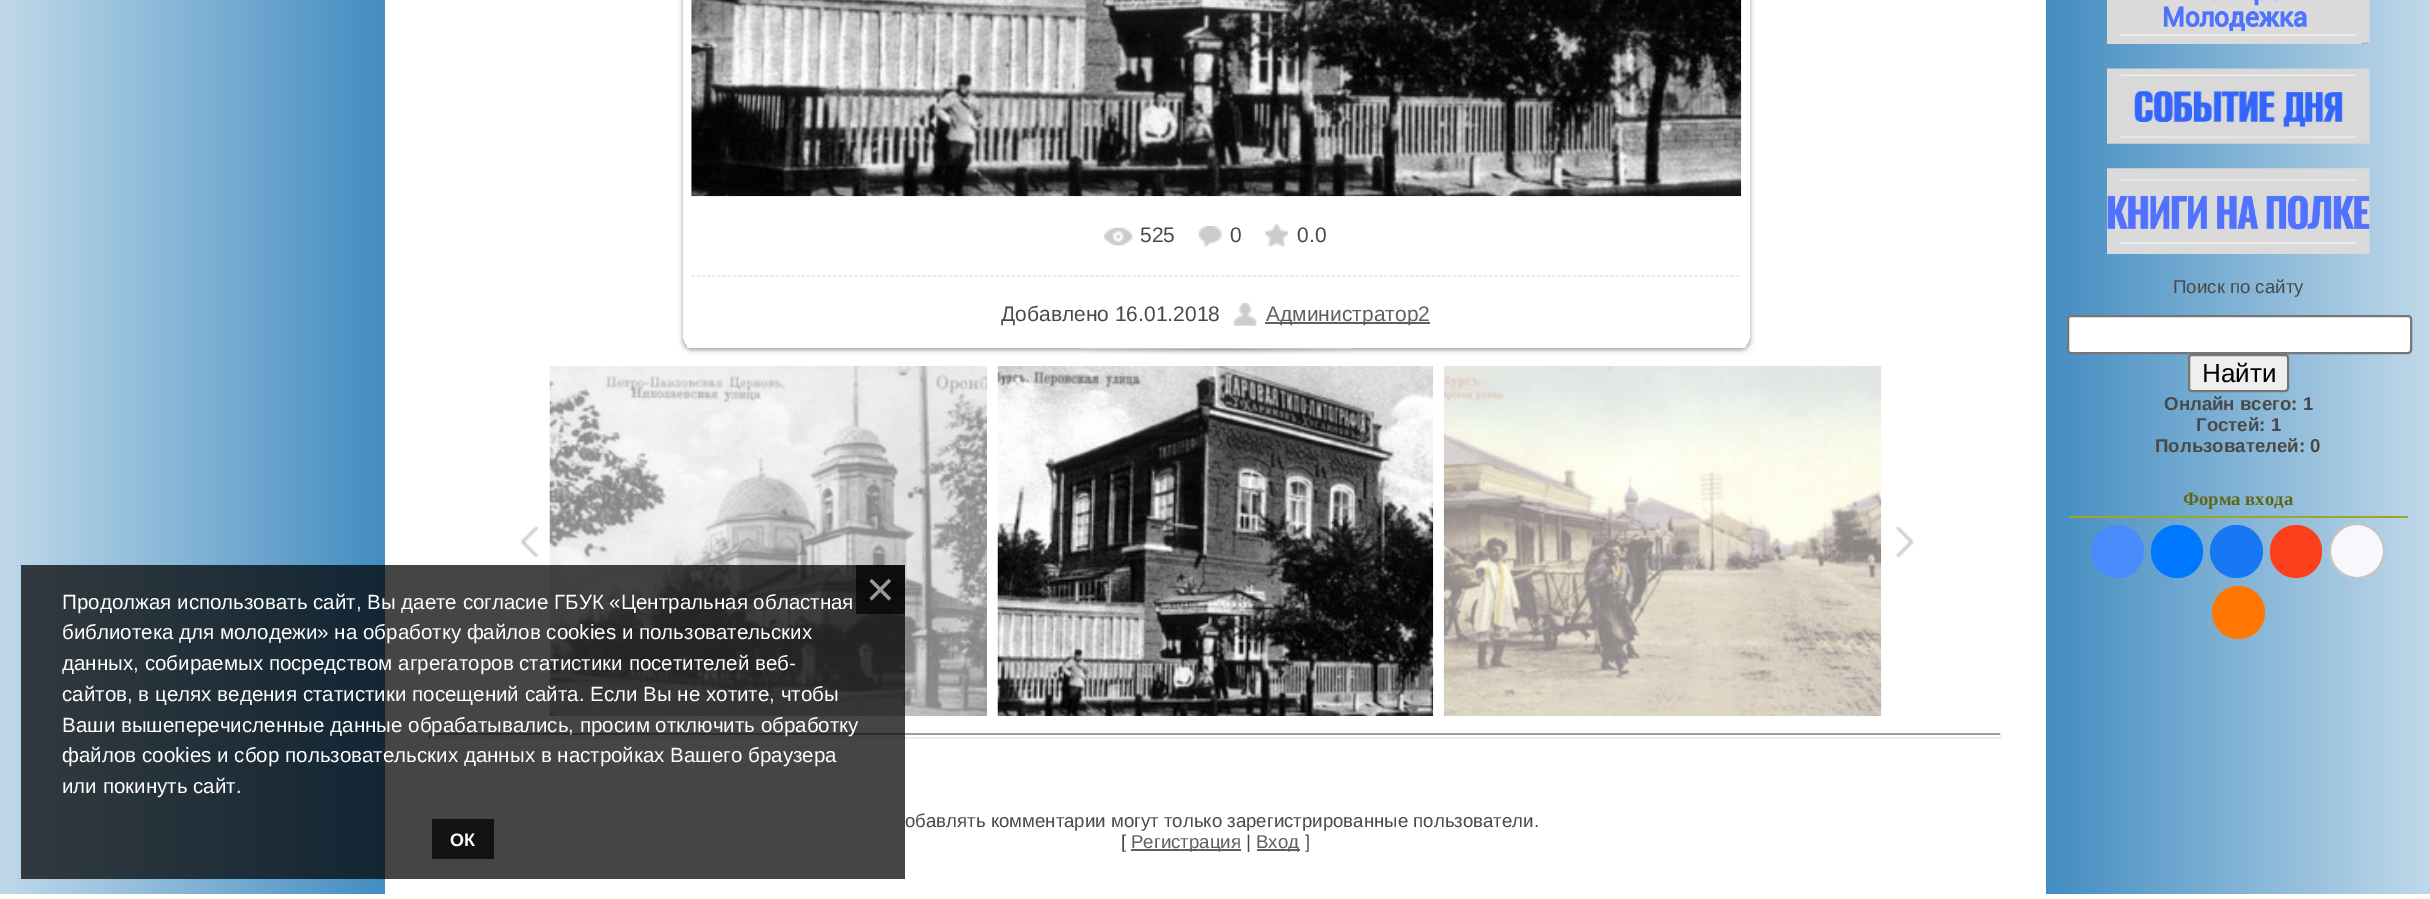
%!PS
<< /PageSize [2430 899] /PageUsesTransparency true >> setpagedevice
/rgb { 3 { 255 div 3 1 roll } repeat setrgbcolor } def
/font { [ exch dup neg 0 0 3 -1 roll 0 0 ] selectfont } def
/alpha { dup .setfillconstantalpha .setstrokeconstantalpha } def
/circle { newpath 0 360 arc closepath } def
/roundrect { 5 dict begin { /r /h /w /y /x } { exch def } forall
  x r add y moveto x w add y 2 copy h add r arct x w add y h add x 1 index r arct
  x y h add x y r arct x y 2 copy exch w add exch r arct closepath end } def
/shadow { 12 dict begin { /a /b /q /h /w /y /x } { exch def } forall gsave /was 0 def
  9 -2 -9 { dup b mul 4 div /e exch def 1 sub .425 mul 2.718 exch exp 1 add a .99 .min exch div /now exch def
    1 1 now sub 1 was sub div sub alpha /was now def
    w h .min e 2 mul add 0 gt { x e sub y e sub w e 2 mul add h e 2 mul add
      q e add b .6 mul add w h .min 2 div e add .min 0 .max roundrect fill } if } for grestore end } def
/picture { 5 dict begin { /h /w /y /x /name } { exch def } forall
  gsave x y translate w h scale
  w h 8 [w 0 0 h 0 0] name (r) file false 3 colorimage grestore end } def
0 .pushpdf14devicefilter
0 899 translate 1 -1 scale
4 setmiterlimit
255 255 255 rgb
0 0 2430 899 rectfill
gsave 0 0 moveto 385 0 lineto 385 894 lineto 0 894 lineto closepath clip newpath
<< /ShadingType 2 /ColorSpace /DeviceRGB /Coords [385 144 0 144] /Extend [true true] /Function << /FunctionType 2 /Domain [0 1] /C0 [0.263 0.553 0.757] /C1 [0.753 0.851 0.918] /N 1 >> >> shfill grestore
(img/10.rgb) 549 366 438 350 picture
[
  [429 733 1573 2 159 159 159]
  [2000 733 2 5 238 238 238]
  [429 737 1573 2 238 238 238]
  [429 733 2 5 159 159 159]
] { aload pop rgb rectfill } forall
0.73 alpha
[
  [21 565 884 314 0 0 0]
  [856 565 49 49 0 0 0]
] { aload pop rgb rectfill } forall
1 alpha
[
  [432 819 62 40 18 18 18]
] { aload pop rgb rectfill } forall
gsave
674 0 moveto 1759 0 lineto 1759 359 lineto 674 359 lineto closepath 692 -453 moveto 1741 -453 lineto 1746 -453 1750 -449 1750 -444 curveto 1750 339 lineto 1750 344 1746 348 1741 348 curveto 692 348 lineto 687 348 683 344 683 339 curveto 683 -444 lineto 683 -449 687 -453 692 -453 curveto closepath eoclip newpath
0 0 0 rgb
683 -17 1067 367 9 2.5 0.37 shadow
grestore
(img/1.rgb) 687 346 1060 2 picture
(img/2.rgb) 691 0 1051 197 picture
(img/3.rgb) 1104 227 29 19 picture
(img/4.rgb) 1198 226 24 21 picture
(img/5.rgb) 1265 224 23 23 picture
(img/6.rgb) 691 275 1049 2 picture
(img/7.rgb) 1233 303 24 23 picture
95 96 92 rgb
1265 322 165 2 rectfill
(img/8.rgb) 1081 348 272 6 picture
(img/9.rgb) 520 526 19 32 picture
(img/11.rgb) 997 366 437 350 picture
(img/12.rgb) 1443 366 439 350 picture
(img/13.rgb) 1895 526 20 32 picture
1131 849 110 2 rectfill
1257 849 43 2 rectfill
gsave 2046 0 moveto 2430 0 lineto 2430 894 lineto 2046 894 lineto closepath clip newpath
<< /ShadingType 2 /ColorSpace /DeviceRGB /Coords [2046 144 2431 144] /Extend [true true] /Function << /FunctionType 2 /Domain [0 1] /C0 [0.263 0.553 0.757] /C1 [0.753 0.851 0.918] /N 1 >> >> shfill grestore
(img/14.rgb) 2107 0 263 44 picture
(img/15.rgb) 2107 68 263 76 picture
(img/16.rgb) 2107 168 263 86 picture
255 255 255 rgb
2068 316 343 37 3 roundrect gsave fill grestore
118 118 118 rgb
2 setlinewidth
stroke
239 239 239 rgb
2189 355 99 36 3 roundrect gsave fill grestore
118 118 118 rgb
stroke
156 167 37 rgb
2069 516 339 2 rectfill
73 139 250 rgb
2117.5 551.5 26.5 circle fill
0 119 255 rgb
2151 525 52 53 26 roundrect fill
24 119 242 rgb
2236.5 551.5 26.5 circle fill
252 63 29 rgb
2270 525 52 53 26 roundrect fill
248 248 252 rgb
2357 551 27 circle gsave fill grestore
196 196 196 rgb
stroke
255 119 0 rgb
2238.5 612.5 26.5 circle fill
/LiberationSans-Regular 49 font
153 153 153 rgb
866 606 moveto (×) show
/LiberationSans-Bold 18 font
255 255 255 rgb
450 846 moveto (ОК) show
/LiberationSans-Regular 20.55 font
[
  [(Продолжая использовать сайт, Вы даете согласие ГБУК «Центральная областная) 62 609]
  [(библиотека для молодежи» на обработку файлов cookies и пользовательских) 62 639]
  [(данных, собираемых посредством агрегаторов статистики посетителей веб-) 62 670]
  [(сайтов, в целях ведения статистики посещений сайта. Если Вы не хотите, чтобы) 62 701]
  [(Ваши вышеперечисленные данные обрабатывались, просим отключить обработку) 62 732]
  [(файлов cookies и сбор пользовательских данных в настройках Вашего браузера) 62 762]
  [(или покинуть сайт.) 62 793]
] { aload pop moveto show } forall
/LiberationSans-Regular 21 font
73 73 73 rgb
[
  [(525) 1140 242]
  [(0) 1230 242]
  [(0.0) 1297 242]
  [(Добавлено 16.01.2018) 1001 321]
] { aload pop moveto show } forall
95 96 92 rgb
1266 321 moveto (Администратор2) show
/LiberationSans-Regular 18.65 font
73 73 73 rgb
905 827 moveto (обавлять комментарии могут только зарегистрированные пользователи.) show
1121 848 moveto ([) show
95 96 92 rgb
1131 848 moveto (Регистрация) show
73 73 73 rgb
1246 848 moveto (|) show
95 96 92 rgb
1256 848 moveto (Вход) show
73 73 73 rgb
1305 848 moveto (]) show
2173 293 moveto (Поиск по сайту) show
/LiberationSans-Regular 26 font
0 0 0 rgb
2202 382 moveto (Найти) show
/LiberationSans-Bold 18.65 font
73 73 73 rgb
[
  [(Онлайн всего: 1) 2164 410]
  [(Гостей: 1) 2196 431]
  [(Пользователей: 0) 2155 452]
] { aload pop moveto show } forall
/LiberationSerif-Bold 18.65 font
96 102 21 rgb
2183 505 moveto (Форма входа) show
.poppdf14devicefilter showpage
